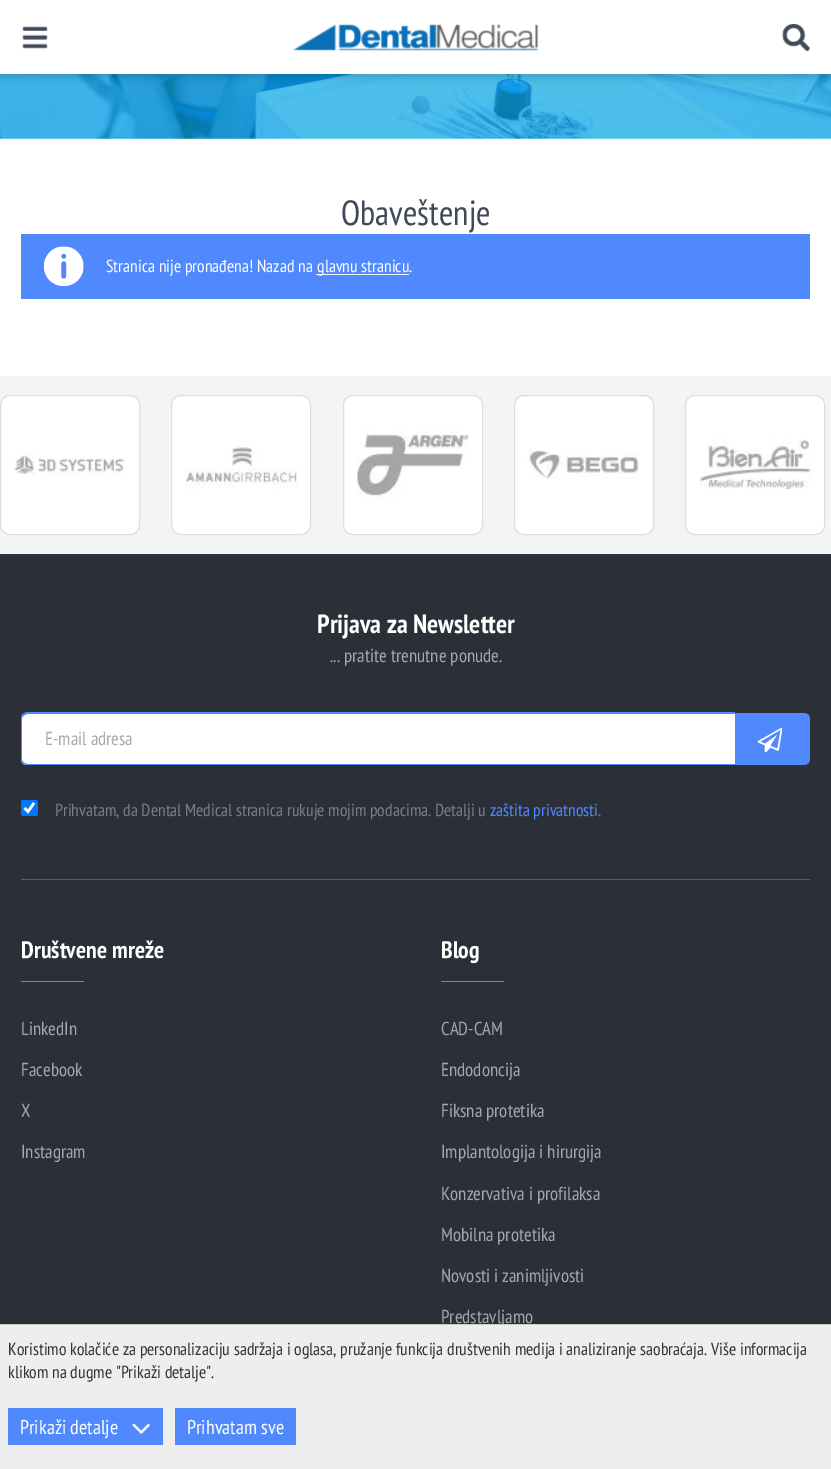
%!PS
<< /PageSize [831 1469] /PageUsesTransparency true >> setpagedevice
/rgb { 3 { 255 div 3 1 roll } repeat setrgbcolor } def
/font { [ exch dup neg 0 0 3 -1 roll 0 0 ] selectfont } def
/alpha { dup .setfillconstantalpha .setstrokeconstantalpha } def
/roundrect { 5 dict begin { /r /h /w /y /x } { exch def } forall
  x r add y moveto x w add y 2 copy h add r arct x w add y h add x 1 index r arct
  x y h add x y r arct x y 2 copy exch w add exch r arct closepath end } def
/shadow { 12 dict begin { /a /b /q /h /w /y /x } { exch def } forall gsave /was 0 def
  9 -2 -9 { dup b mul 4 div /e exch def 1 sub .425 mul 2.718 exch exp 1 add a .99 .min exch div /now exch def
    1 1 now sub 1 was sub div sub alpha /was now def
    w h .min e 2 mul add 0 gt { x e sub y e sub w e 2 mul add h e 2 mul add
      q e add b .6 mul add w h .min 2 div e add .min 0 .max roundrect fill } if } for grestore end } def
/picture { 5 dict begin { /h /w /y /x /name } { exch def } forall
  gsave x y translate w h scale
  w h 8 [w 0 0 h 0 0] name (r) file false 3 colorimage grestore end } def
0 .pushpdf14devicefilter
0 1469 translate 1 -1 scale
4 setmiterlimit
255 255 255 rgb
0 0 831 1469 rectfill
(img/4.rgb) 0 74 831 65 picture
0 0 0 rgb
0 4 831 74 0 4 0.16 shadow
255 255 255 rgb
0 0 831 74 rectfill
(img/1.rgb) 22 26 26 23 picture
(img/2.rgb) 293 24 246 27 picture
(img/3.rgb) 782 24 28 28 picture
80 137 253 rgb
21 234 789 65 rectfill
(img/5.rgb) 44 246 40 40 picture
255 255 255 rgb
316 274 93 1 rectfill
242 244 246 rgb
0 376 831 178 rectfill
255 255 255 rgb
0.5 395.5 139 139 9.5 roundrect gsave fill grestore
221 221 221 rgb
stroke
(img/6.rgb) 14 454 112 21 picture
255 255 255 rgb
171.5 395.5 139 139 9.5 roundrect gsave fill grestore
221 221 221 rgb
stroke
(img/7.rgb) 185 445 112 44 picture
255 255 255 rgb
343.5 395.5 139 139 9.5 roundrect gsave fill grestore
221 221 221 rgb
stroke
(img/8.rgb) 356 429 113 70 picture
255 255 255 rgb
514.5 395.5 139 139 9.5 roundrect gsave fill grestore
221 221 221 rgb
stroke
(img/9.rgb) 527 449 113 30 picture
255 255 255 rgb
685.5 395.5 139 139 9.5 roundrect gsave fill grestore
221 221 221 rgb
stroke
(img/10.rgb) 699 439 112 51 picture
42 47 56 rgb
0 554 831 770 rectfill
255 255 255 rgb
27 713 moveto 735 713 lineto 735 765 lineto 27 765 lineto 23.5 765 21 762.5 21 759 curveto 21 719 lineto 21 715.5 23.5 713 27 713 curveto closepath fill
80 137 253 rgb
28 712 moveto 735 712 lineto 735 765 lineto 28 765 lineto 24 765 21 762 21 759 curveto 21 719 lineto 21 715 24 712 28 712 curveto closepath 28 714 moveto 735 714 lineto 735 764 lineto 28 764 lineto 25 764 22 762 22 759 curveto 22 719 lineto 22 716 25 714 28 714 curveto closepath eofill
735 713 moveto 804 713 lineto 807.5 713 810 715.5 810 719 curveto 810 759 lineto 810 762.5 807.5 765 804 765 curveto 735 765 lineto closepath fill
(img/11.rgb) 757 727 26 26 picture
0 117 255 rgb
21 800 17 16 2.5 roundrect fill
255 255 255 rgb
2.6 setlinewidth
24.5 808 moveto 28 811.5 lineto 34 803 lineto stroke
[
  [21 879 789 1 87 97 110]
  [21 981 63 1 80 137 253]
  [441 981 63 1 80 137 253]
] { aload pop rgb rectfill } forall
/PTSansNarrow-Regular 35 font
65 73 89 rgb
341 225 moveto (Obaveštenje) show
/PTSansNarrow-Regular 17.5 font
255 255 255 rgb
106 272 moveto (Stranica nije pronađena! Nazad na) show
317 272 moveto (glavnu stranicu.) show
/PTSansNarrow-Bold 26.25 font
317 633 moveto (Prijava za Newsletter) show
/PTSansNarrow-Regular 18.75 font
162 167 174 rgb
330 662 moveto (... pratite trenutne ponude.) show
168 169 176 rgb
45 745 moveto (E-mail adresa) show
/PTSansNarrow-Regular 17.5 font
123 127 132 rgb
55 816 moveto (Prihvatam, da Dental Medical stranica rukuje mojim podacima. Detalji u) show
80 137 253 rgb
490 816 moveto (zaštita privatnosti) show
123 127 132 rgb
598 816 moveto (.) show
/PTSansNarrow-Bold 23.75 font
255 255 255 rgb
21 958 moveto (Društvene mreže) show
/PTSansNarrow-Regular 18.75 font
162 167 174 rgb
[
  [(LinkedIn) 21 1035]
  [(Facebook) 21 1076]
  [(X) 21 1117]
  [(Instagram) 21 1158]
] { aload pop moveto show } forall
/PTSansNarrow-Bold 23.75 font
255 255 255 rgb
441 958 moveto (Blog) show
/PTSansNarrow-Regular 18.75 font
162 167 174 rgb
[
  [(CAD-CAM) 441 1035]
  [(Endodoncija) 441 1076]
  [(Fiksna protetika) 441 1117]
  [(Implantologija i hirurgija) 441 1158]
  [(Konzervativa i profilaksa) 441 1200]
  [(Mobilna protetika) 441 1241]
  [(Novosti i zanimljivosti) 441 1282]
  [(Predstavljamo) 441 1323]
] { aload pop moveto show } forall
238 238 238 rgb
0 1325 831 144 rectfill
204 204 204 rgb
0 1324 831 1 rectfill
/PTSansNarrow-Regular 17.5 font
51 51 51 rgb
8 1355 moveto (Koristimo kolačiće za personalizaciju sadržaja i oglasa, pružanje funkcija društvenih medija i analiziranje saobraćaja. Više informacija) show
8 1378 moveto (klikom na dugme "Prikaži detalje".) show
80 137 253 rgb
8 1408 155 37 rectfill
/PTSansNarrow-Regular 20 font
255 255 255 rgb
20 1434 moveto (Prikaži detalje) show
(img/12.rgb) 132 1423 19 11 picture
80 137 253 rgb
175 1408 121 37 rectfill
255 255 255 rgb
187 1434 moveto (Prihvatam sve) show
.poppdf14devicefilter showpage
